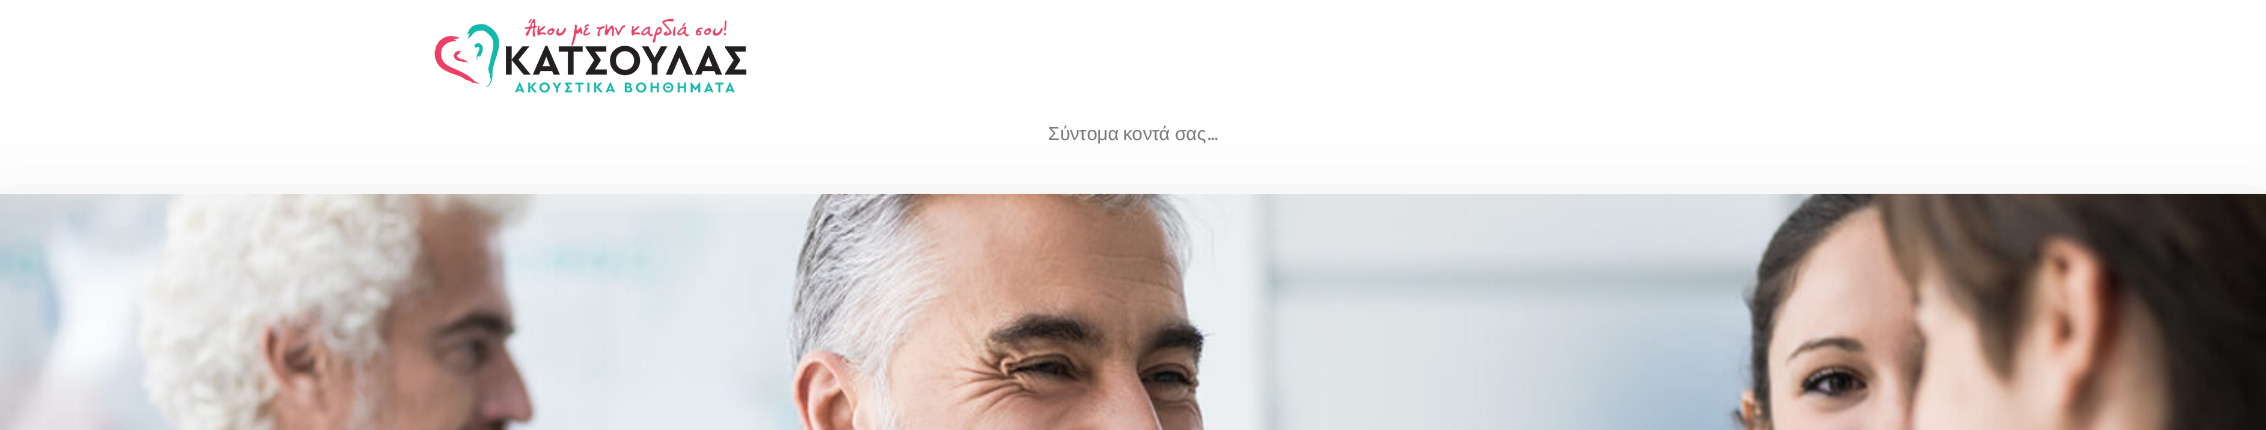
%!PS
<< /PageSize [2266 430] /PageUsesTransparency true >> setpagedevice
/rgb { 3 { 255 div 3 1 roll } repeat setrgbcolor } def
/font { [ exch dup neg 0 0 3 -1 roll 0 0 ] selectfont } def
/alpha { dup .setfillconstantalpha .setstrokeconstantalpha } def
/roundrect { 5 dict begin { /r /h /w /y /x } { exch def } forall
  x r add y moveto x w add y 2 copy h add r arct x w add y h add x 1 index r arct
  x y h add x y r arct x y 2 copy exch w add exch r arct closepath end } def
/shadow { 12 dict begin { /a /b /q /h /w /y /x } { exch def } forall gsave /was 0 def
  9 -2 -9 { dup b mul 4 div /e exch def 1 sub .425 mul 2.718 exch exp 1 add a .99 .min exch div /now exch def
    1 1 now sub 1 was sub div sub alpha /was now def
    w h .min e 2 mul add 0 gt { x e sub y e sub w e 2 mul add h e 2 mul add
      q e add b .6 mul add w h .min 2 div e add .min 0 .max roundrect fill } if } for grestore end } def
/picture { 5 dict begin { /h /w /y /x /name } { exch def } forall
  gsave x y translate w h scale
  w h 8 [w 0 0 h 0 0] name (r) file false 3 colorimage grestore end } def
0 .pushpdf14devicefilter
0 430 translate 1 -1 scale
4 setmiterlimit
255 255 255 rgb
0 0 2266 430 rectfill
0 0 0 rgb
0 213 2266 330 0 37.5 0.1 shadow
(img/1.rgb) 0 193 2266 237 picture
(img/2.rgb) 434 18 313 75 picture
/LiberationSans-Regular 18.75 font
122 122 122 rgb
1048 140 moveto -1 0 32 (Σύντομα κοντά σας) widthshow
/Rubik-Regular 18.75 font
1207 140 moveto (…) show
.poppdf14devicefilter showpage
